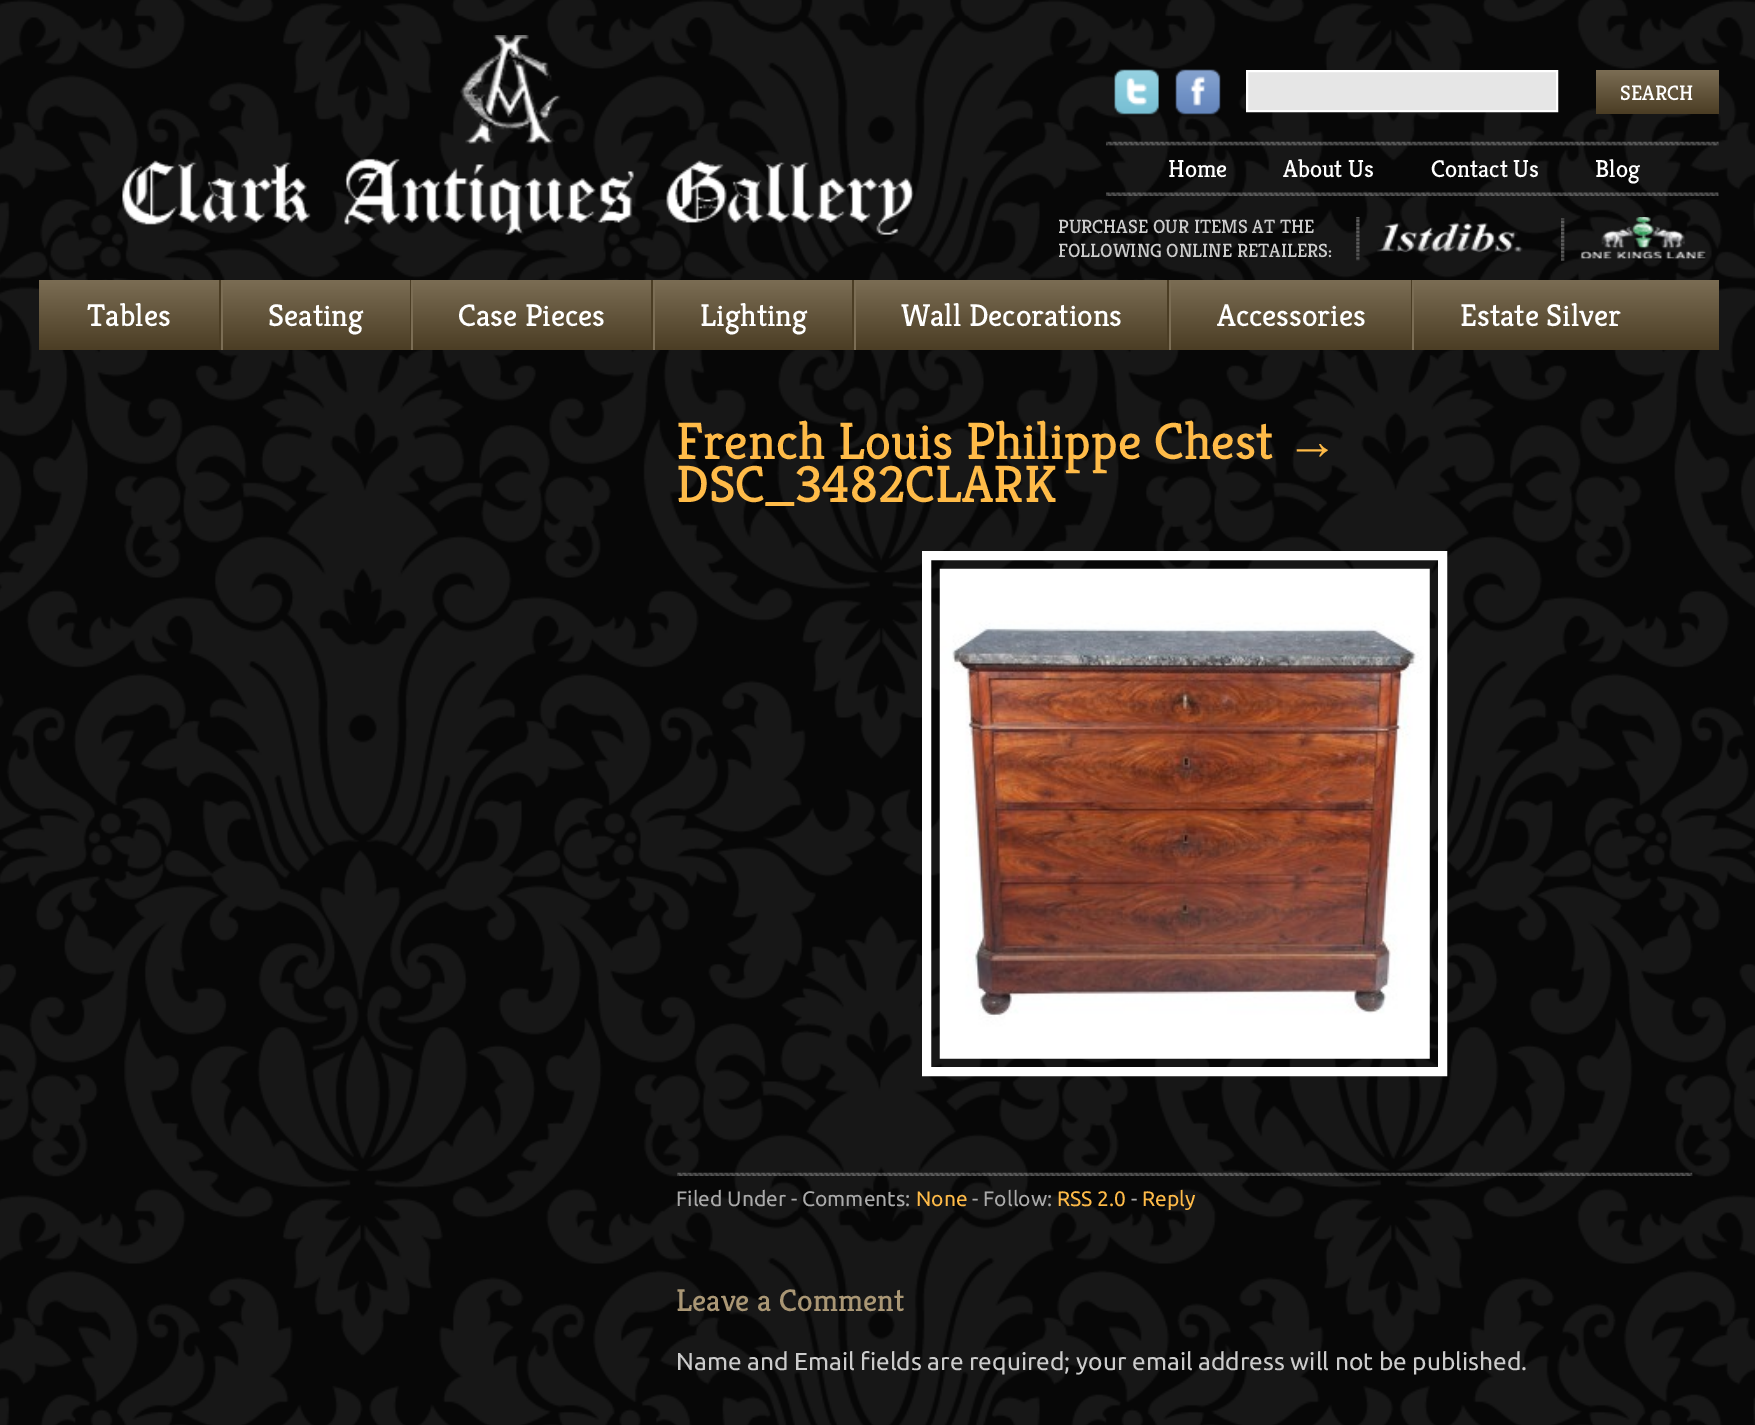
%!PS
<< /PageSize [1755 1425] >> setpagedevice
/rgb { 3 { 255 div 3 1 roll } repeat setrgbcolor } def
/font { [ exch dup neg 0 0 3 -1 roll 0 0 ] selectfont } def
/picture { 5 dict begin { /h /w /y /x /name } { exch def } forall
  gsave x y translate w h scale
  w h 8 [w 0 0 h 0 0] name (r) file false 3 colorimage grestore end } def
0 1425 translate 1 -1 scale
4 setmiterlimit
255 255 255 rgb
0 0 1755 1425 rectfill
(img/1.rgb) 0 0 1755 1425 picture
(img/2.rgb) 122 35 792 200 picture
(img/3.rgb) 1114 69 45 48 picture
(img/4.rgb) 1175 69 46 48 picture
230 230 230 rgb
1247 71 moveto 1557 71 lineto 1557 111 lineto 1247 111 lineto closepath gsave fill grestore
255 255 255 rgb
2 setlinewidth
stroke
gsave 1596 70 moveto 1719 70 lineto 1719 114 lineto 1596 114 lineto closepath clip newpath
<< /ShadingType 2 /ColorSpace /DeviceRGB /Coords [1657 70 1657 114] /Extend [true true] /Function << /FunctionType 2 /Domain [0 1] /C0 [0.482 0.427 0.329] /C1 [0.294 0.239 0.141] /N 1 >> >> shfill grestore
(img/5.rgb) 1106 141 613 55 picture
(img/6.rgb) 1356 217 167 44 picture
(img/7.rgb) 1561 217 145 44 picture
gsave 39 280 moveto 1719 280 lineto 1719 350 lineto 39 350 lineto closepath clip newpath
<< /ShadingType 2 /ColorSpace /DeviceRGB /Coords [879 280 879 350] /Extend [true true] /Function << /FunctionType 2 /Domain [0 1] /C0 [0.482 0.427 0.329] /C1 [0.294 0.239 0.141] /N 1 >> >> shfill grestore
[
  [219 280 2 70 75 61 36]
  [410 280 1 70 75 61 36]
  [221 280 2 70 123 109 84]
  [651 280 2 70 75 61 36]
  [411 280 2 70 123 109 84]
  [852 280 2 70 75 61 36]
  [653 280 2 70 123 109 84]
  [1167 280 2 70 75 61 36]
  [854 280 2 70 123 109 84]
  [1411 280 1 70 75 61 36]
  [1169 280 2 70 123 109 84]
  [1412 280 2 70 123 109 84]
] { aload pop rgb rectfill } forall
255 255 255 rgb
9 setlinewidth
926.5 555.5 516 516 rectstroke
(img/8.rgb) 939 568 491 491 picture
(img/9.rgb) 677 1172 1016 4 picture
/Kreon-Regular 21 font
1620 100 moveto (SEARCH) show
/Kreon-Regular 24.5 font
[
  [(Home) 1168 177]
  [(About Us) 1283 177]
  [(Contact Us) 1431 177]
  [(Blog) 1595 177]
] { aload pop moveto show } forall
/Kreon-Regular 19.25 font
204 204 204 rgb
1058 233 moveto (PURCHASE OUR ITEMS AT THE) show
1058 257 moveto (FOLLOWING ONLINE RETAILERS:) show
/Kreon-Regular 31.5 font
255 255 255 rgb
[
  [(Tables) 87 326]
  [(Seating) 268 326]
  [(Case Pieces) 458 326]
  [(Lighting) 700 326]
  [(Wall Decorations) 901 326]
  [(Accessories) 1217 326]
  [(Estate Silver) 1460 326]
] { aload pop moveto show } forall
/Kreon-Regular 52.5 font
255 187 72 rgb
676 459 moveto (French Louis Philippe Chest) show
/LiberationSerif-Regular 52.5 font
1286 459 moveto (→) show
/Kreon-Regular 52.5 font
676 502 moveto (DSC_3482CLARK) show
/Ubuntu-Regular 21 font
170 170 170 rgb
676 1206 moveto (Filed Under - Comments:) show
255 187 72 rgb
916 1206 moveto (None) show
170 170 170 rgb
972 1206 moveto (- Follow:) show
255 187 72 rgb
1057 1206 moveto (RSS 2.0) show
170 170 170 rgb
1131 1206 moveto (-) show
255 187 72 rgb
1142 1206 moveto (Reply) show
/Kreon-Regular 31.5 font
170 151 117 rgb
676 1311 moveto (Leave a Comment) show
/Ubuntu-Regular 24.5 font
204 204 204 rgb
676 1370 moveto (Name and Email fields are required; your email address will not be published.) show
showpage
